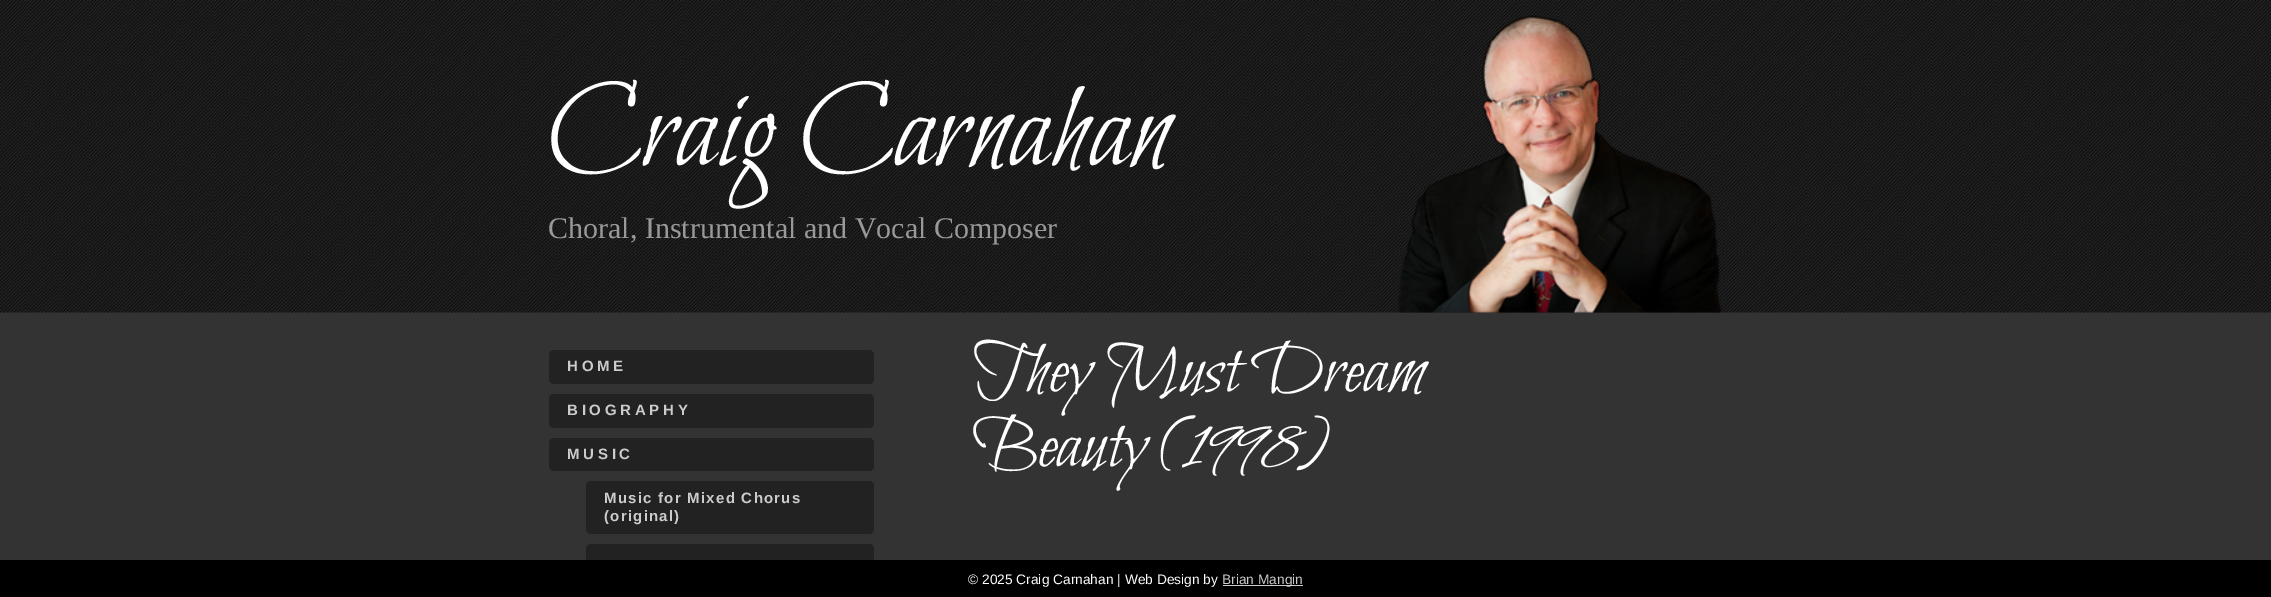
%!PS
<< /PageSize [2271 597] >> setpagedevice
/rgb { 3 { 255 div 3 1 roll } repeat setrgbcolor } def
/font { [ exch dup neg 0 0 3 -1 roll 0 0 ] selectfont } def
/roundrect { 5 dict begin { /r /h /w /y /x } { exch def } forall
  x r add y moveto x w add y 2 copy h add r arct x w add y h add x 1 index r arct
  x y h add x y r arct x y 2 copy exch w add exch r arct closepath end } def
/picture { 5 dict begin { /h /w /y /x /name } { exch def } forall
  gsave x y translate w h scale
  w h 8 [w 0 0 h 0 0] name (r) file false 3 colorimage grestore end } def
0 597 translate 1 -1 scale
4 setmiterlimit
51 51 51 rgb
0 0 2271 597 rectfill
(img/1.rgb) 0 0 2271 313 picture
(img/2.rgb) 1398 15 324 298 picture
34 34 34 rgb
549 350 325 34 5 roundrect fill
549 394 325 34 5 roundrect fill
549 438 325 33 5 roundrect fill
586 481 288 53 5 roundrect fill
586 544 288 52 5 roundrect fill
0 0 0 rgb
0 560 2271 37 rectfill
204 204 204 rgb
1223 585 80 1 rectfill
/BilboSwashCaps-Regular 125 font
255 255 255 rgb
548 165 moveto (Craig Carnahan) show
/LiberationSerif-Regular 30 font
153 153 153 rgb
548 238 moveto (Choral, Instrumental and Vocal Composer) show
/LiberationSans-Bold 15 font
204 204 204 rgb
567 371 moveto 3.75 0 (HOME) ashow
567 415 moveto 3.75 0 (BIOGRAPHY) ashow
567 459 moveto 3.75 0 (MUSIC) ashow
604 503 moveto 1.25 0 (Music for Mixed Chorus) ashow
604 521 moveto 1.25 0 (\(original\)) ashow
/BilboSwashCaps-Regular 75 font
255 255 255 rgb
973 391 moveto (They Must Dream) show
973 466 moveto (Beauty \(1998\)) show
/LiberationSans-Regular 13.75 font
968 584 moveto (© 2025 Craig Carnahan | Web Design by) show
204 204 204 rgb
1222 584 moveto (Brian Mangin) show
showpage
